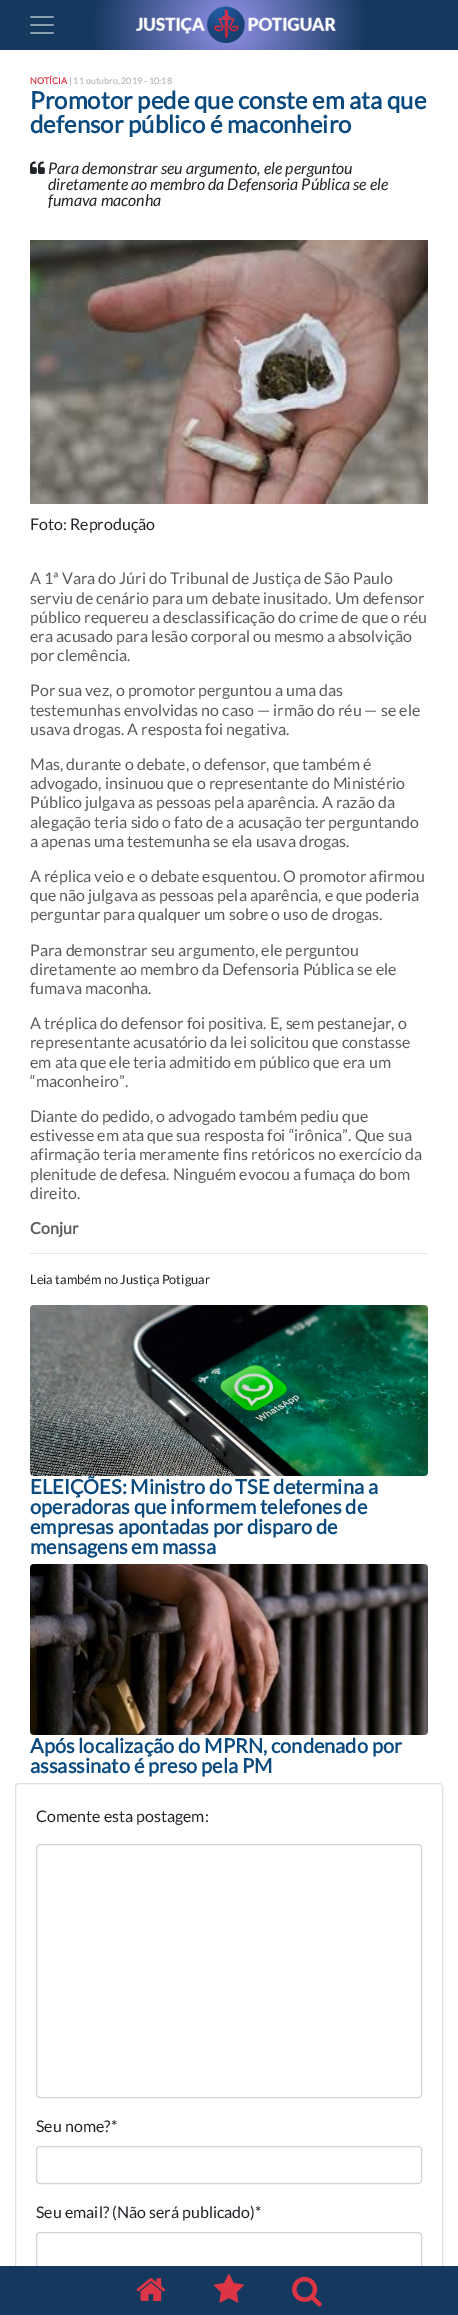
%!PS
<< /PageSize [458 2315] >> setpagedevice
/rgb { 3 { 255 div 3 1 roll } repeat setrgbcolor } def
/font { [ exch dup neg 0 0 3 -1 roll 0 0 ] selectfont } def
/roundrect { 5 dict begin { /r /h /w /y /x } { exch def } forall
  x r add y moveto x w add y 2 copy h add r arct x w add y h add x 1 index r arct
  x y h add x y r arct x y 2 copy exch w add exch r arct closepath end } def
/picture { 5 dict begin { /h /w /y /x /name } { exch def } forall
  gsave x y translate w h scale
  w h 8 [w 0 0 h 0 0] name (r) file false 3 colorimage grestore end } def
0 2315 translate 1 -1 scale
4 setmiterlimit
255 255 255 rgb
0 0 458 2315 rectfill
gsave 0 0 moveto 458 0 lineto 458 50 lineto 0 50 lineto closepath clip newpath 229 25 translate 230 230 scale
<< /ShadingType 3 /ColorSpace /DeviceRGB /Coords [0 0 0 0 0 1] /Extend [true true] /Function << /FunctionType 3 /Domain [0 1] /Functions [<< /FunctionType 2 /Domain [0 1] /C0 [0.565 0.565 0.902] /C1 [0.082 0.22 0.369] /N 1 >> << /FunctionType 2 /Domain [0 1] /C0 [0.082 0.22 0.369] /C1 [0.082 0.22 0.369] /N 1 >>] /Bounds [0.6] /Encode [0 1 0 1] >> >> shfill grestore
(img/1.rgb) 30 16 24 18 picture
(img/2.rgb) 136 6 200 37 picture
(img/3.rgb) 30 161 15 13 picture
(img/4.rgb) 30 240 398 264 picture
230 230 230 rgb
30 1253 398 1 rectfill
(img/5.rgb) 30 1305 398 171 picture
(img/6.rgb) 30 1564 398 171 picture
223 223 223 rgb
15.5 1783.5 427 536 3.5 roundrect stroke
206 212 218 rgb
36.5 1844.5 385 253 3.5 roundrect stroke
36.5 2146.5 385 37 3.5 roundrect stroke
36.5 2232.5 385 37 3.5 roundrect stroke
21 56 94 rgb
0 2266 458 49 rectfill
(img/7.rgb) 136 2278 30 23 picture
(img/8.rgb) 214 2274 30 29 picture
(img/9.rgb) 292 2276 30 31 picture
/Lato-Bold 9 font
220 53 69 rgb
30 84 moveto (NOTÍCIA) show
/Lato-Regular 9 font
168 169 171 rgb
69 84 moveto (| 11 outubro, 2019 - 10:18) show
/Lato-Bold 24 font
10 74 127 rgb
30 109 moveto (Promotor pede que conste em ata que) show
30 133 moveto (defensor público é maconheiro) show
/Lato-Italic 16 font
33 37 41 rgb
[
  [(Para demonstrar seu argumento, ele perguntou) 48 174]
  [(diretamente ao membro da Defensoria Pública se ele) 48 190]
  [(fumava maconha) 48 206]
] { aload pop moveto show } forall
/Lato-Regular 16 font
30 530 moveto (Foto: Reprodução) show
92 92 92 rgb
[
  [(A 1ª Vara do Júri do Tribunal de Justiça de São Paulo) 30 584]
  [(serviu de cenário para um debate inusitado. Um defensor) 30 604]
  [(público requereu a desclassificação do crime de que o réu) 30 623]
  [(era acusado para lesão corporal ou mesmo a absolvição) 30 642]
  [(por clemência.) 30 661]
  [(Por sua vez, o promotor perguntou a uma das) 30 696]
  [(testemunhas envolvidas no caso — irmão do réu — se ele) 30 716]
  [(usava drogas. A resposta foi negativa.) 30 735]
  [(Mas, durante o debate, o defensor, que também é) 30 770]
  [(advogado, insinuou que o representante do Ministério) 30 789]
  [(Público julgava as pessoas pela aparência. A razão da) 30 808]
  [(alegação teria sido o fato de a acusação ter perguntando) 30 828]
  [(a apenas uma testemunha se ela usava drogas.) 30 847]
  [(A réplica veio e o debate esquentou. O promotor afirmou) 30 882]
  [(que não julgava as pessoas pela aparência, e que poderia) 30 901]
  [(perguntar para qualquer um sobre o uso de drogas.) 30 920]
  [(Para demonstrar seu argumento, ele perguntou) 30 956]
  [(diretamente ao membro da Defensoria Pública se ele) 30 975]
  [(fumava maconha.) 30 994]
  [(A tréplica do defensor foi positiva. E, sem pestanejar, o) 30 1029]
  [(representante acusatório da lei solicitou que constasse) 30 1048]
  [(em ata que ele teria admitido em público que era um) 30 1068]
  [(“maconheiro”.) 30 1087]
  [(Diante do pedido, o advogado também pediu que) 30 1122]
  [(estivesse em ata que sua resposta foi “irônica”. Que sua) 30 1141]
  [(afirmação teria meramente fins retóricos no exercício da) 30 1160]
  [(plenitude de defesa. Ninguém evocou a fumaça do bom) 30 1180]
  [(direito.) 30 1199]
] { aload pop moveto show } forall
/Lato-Bold 16 font
30 1234 moveto (Conjur) show
/Lato-Regular 12.75 font
33 37 41 rgb
30 1284 moveto (Leia também no Justiça Potiguar) show
/Lato-Bold 20 font
10 74 127 rgb
[
  [(ELEIÇÕES: Ministro do TSE determina a) 30 1494]
  [(operadoras que informem telefones de) 30 1514]
  [(empresas apontadas por disparo de) 30 1534]
  [(mensagens em massa) 30 1554]
  [(Após localização do MPRN, condenado por) 30 1753]
  [(assassinato é preso pela PM) 30 1773]
] { aload pop moveto show } forall
/Lato-Regular 16 font
33 37 41 rgb
[
  [(Comente esta postagem:) 36 1822]
  [(Seu nome?*) 36 2132]
  [(Seu email? \(Não será publicado\)*) 36 2218]
] { aload pop moveto show } forall
showpage
